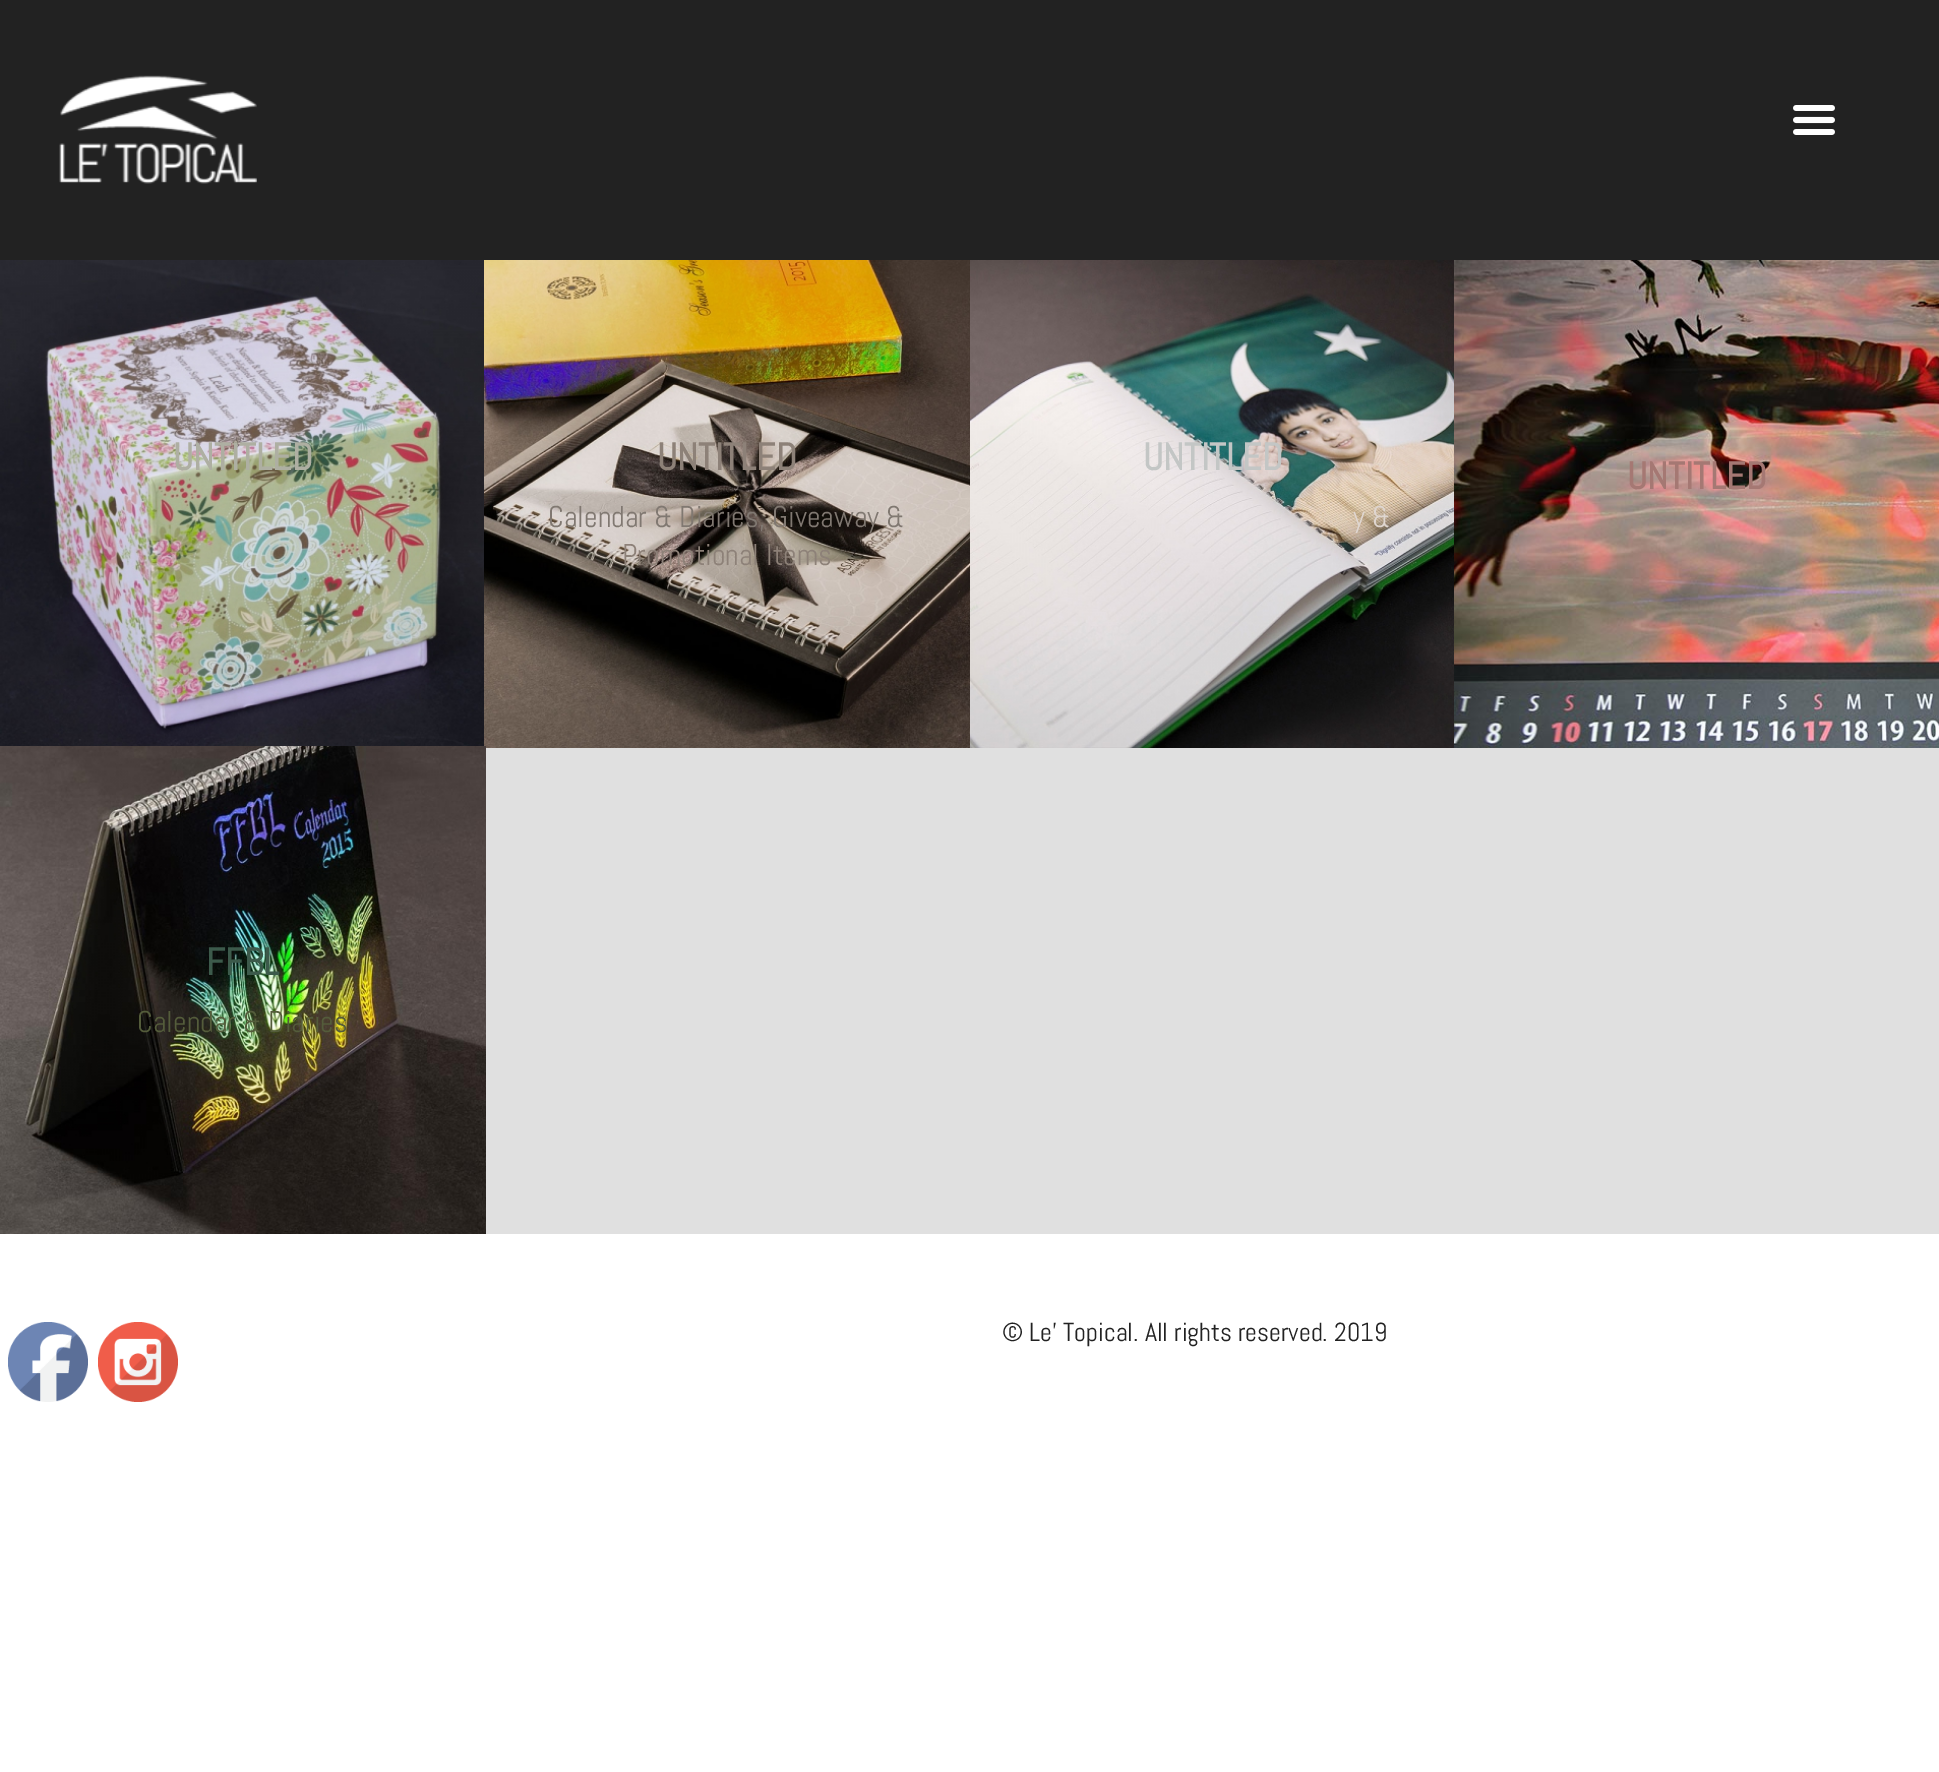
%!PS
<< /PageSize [1939 1772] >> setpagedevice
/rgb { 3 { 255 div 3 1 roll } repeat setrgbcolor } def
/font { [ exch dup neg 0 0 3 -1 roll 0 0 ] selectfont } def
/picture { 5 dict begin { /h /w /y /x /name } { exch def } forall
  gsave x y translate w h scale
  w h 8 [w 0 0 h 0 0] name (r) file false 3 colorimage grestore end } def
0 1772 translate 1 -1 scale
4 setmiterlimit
34 34 34 rgb
0 0 1939 1772 rectfill
(img/1.rgb) 59 75 198 109 picture
(img/2.rgb) 1793 105 42 30 picture
224 224 224 rgb
486 748 1453 486 rectfill
(img/3.rgb) 0 260 484 486 picture
(img/4.rgb) 484 260 486 488 picture
(img/5.rgb) 970 260 484 488 picture
(img/6.rgb) 1454 260 485 488 picture
(img/7.rgb) 0 746 486 488 picture
255 255 255 rgb
0 1234 1939 538 rectfill
(img/8.rgb) 8 1322 80 80 picture
(img/9.rgb) 98 1322 80 80 picture
/Abel-Bold 38 font
174 175 162 rgb
173 470 moveto (UNTITLED) show
141 129 120 rgb
657 470 moveto (UNTITLED) show
/Abel-Regular 30 font
128 120 113 rgb
548 527 moveto (Calendar & Diaries, Giveaway &) show
141 129 120 rgb
622 565 moveto (Promotional Items) show
/Abel-Bold 38 font
195 198 197 rgb
1143 470 moveto (UNTITLED) show
/Abel-Regular 30 font
223 214 208 rgb
1353 527 moveto (y &) show
/Abel-Bold 38 font
165 120 115 rgb
1627 489 moveto (UNTITLED) show
60 90 75 rgb
206 975 moveto (FFBL) show
/Abel-Regular 30 font
84 92 59 rgb
137 1032 moveto (Calendar & Diaries) show
/Abel-Regular 26 font
34 34 34 rgb
1002 1341 moveto (© Le' Topical. All rights reserved. 2019) show
showpage
